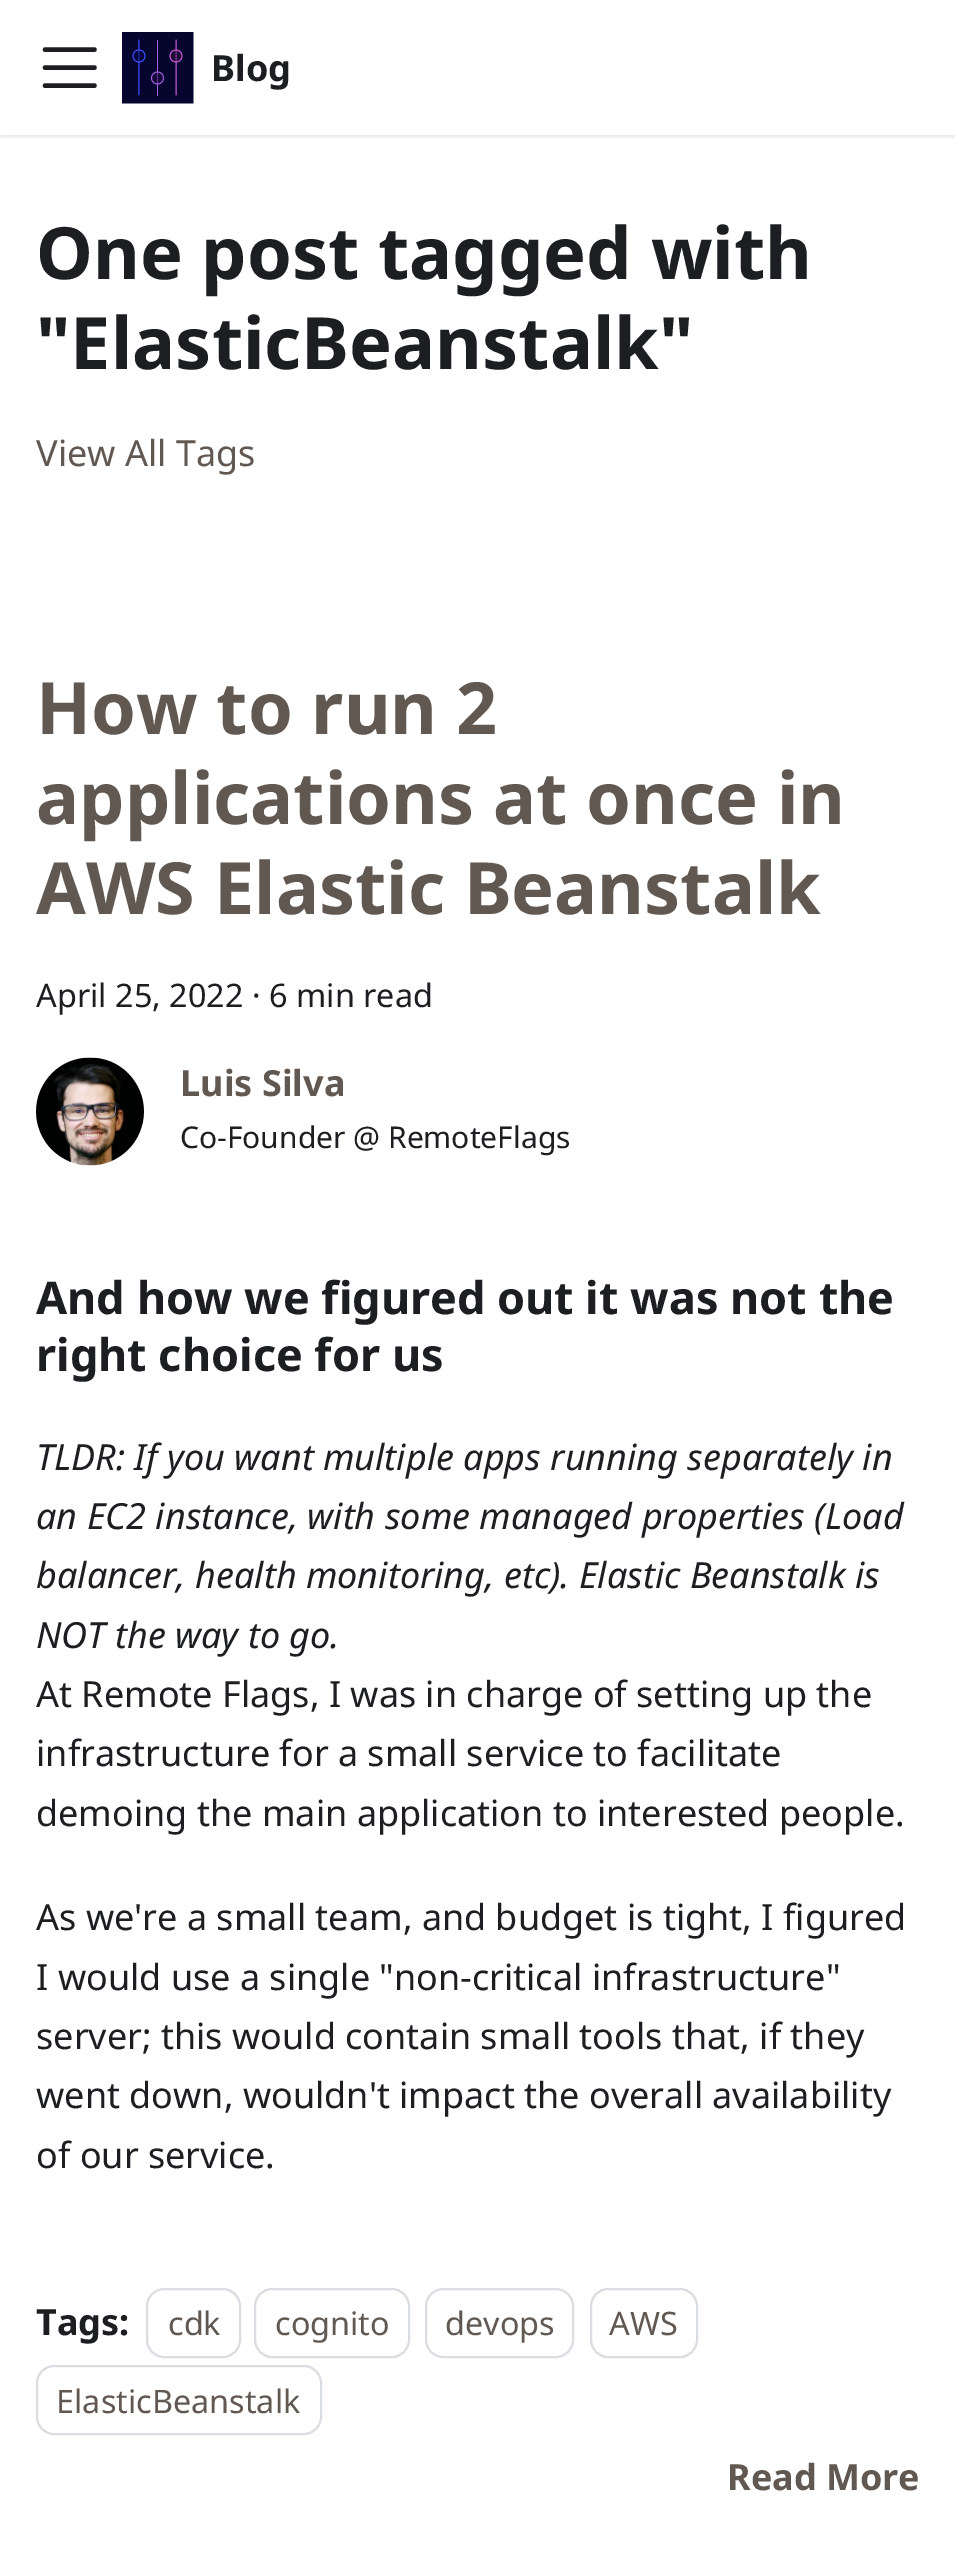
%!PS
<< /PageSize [955 2568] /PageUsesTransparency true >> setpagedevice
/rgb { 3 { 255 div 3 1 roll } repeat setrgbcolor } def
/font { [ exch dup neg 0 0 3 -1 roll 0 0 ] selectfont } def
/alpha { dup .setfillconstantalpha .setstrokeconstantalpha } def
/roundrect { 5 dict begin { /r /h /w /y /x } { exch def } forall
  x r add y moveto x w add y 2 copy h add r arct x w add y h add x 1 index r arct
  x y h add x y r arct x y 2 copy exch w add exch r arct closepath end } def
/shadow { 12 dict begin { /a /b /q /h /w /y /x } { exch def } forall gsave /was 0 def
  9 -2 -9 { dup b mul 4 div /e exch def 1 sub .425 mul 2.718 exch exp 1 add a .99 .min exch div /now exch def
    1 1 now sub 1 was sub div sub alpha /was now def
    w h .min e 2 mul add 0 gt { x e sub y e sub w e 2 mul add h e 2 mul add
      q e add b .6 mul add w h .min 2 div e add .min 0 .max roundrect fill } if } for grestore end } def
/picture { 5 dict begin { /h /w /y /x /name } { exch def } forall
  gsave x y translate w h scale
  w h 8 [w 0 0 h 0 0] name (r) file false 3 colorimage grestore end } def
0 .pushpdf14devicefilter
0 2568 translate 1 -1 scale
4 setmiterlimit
255 255 255 rgb
0 0 955 2568 rectfill
gsave
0 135 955 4 rectclip
0 0 0 rgb
0 2 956 135 0 2 0.1 shadow
grestore
28 30 33 rgb
4.5 setlinewidth
1 setlinecap
45 49.5 moveto 94.5 49.5 lineto 45 67.5 moveto 94.5 67.5 lineto 45 85.5 moveto 94.5 85.5 lineto stroke
(img/1.rgb) 122 32 72 72 picture
(img/2.rgb) 36 1057 108 109 picture
218 221 225 rgb
2 setlinewidth
0 setlinecap
147 2289 93 68 17 roundrect stroke
255 2289 154 68 17 roundrect stroke
426 2289 147 68 17 roundrect stroke
591 2289 106 68 17 roundrect stroke
37 2366 284 68 17 roundrect stroke
/NotoSans-Bold 36 font
28 30 33 rgb
211 81 moveto (Blog) show
/NotoSans-Bold 72 font
36 279 moveto (One post tagged with) show
36 369 moveto ("ElasticBeanstalk") show
/NotoSans-Regular 36 font
97 89 81 rgb
36 466 moveto (View All Tags) show
/NotoSans-Bold 72 font
[
  [(How to run 2) 36 734]
  [(applications at once in) 36 824]
  [(AWS Elastic Beanstalk) 36 914]
] { aload pop moveto show } forall
/NotoSans-Regular 32.4 font
28 30 33 rgb
36 1007 moveto (April 25, 2022 · 6 min read) show
/NotoSans-Bold 36 font
97 89 81 rgb
180 1096 moveto (Luis Silva) show
/NotoSans-Regular 30 font
28 30 33 rgb
180 1148 moveto (Co-Founder @ RemoteFlags) show
/NotoSans-Bold 45 font
36 1314 moveto (And how we figured out it was not the) show
36 1371 moveto (right choice for us) show
/NotoSans-Italic 36 font
[
  [(TLDR: If you want multiple apps running separately in) 36 1470]
  [(an EC2 instance, with some managed properties \(Load) 36 1529]
  [(balancer, health monitoring, etc\). Elastic Beanstalk is) 36 1588]
  [(NOT the way to go.) 36 1648]
] { aload pop moveto show } forall
/NotoSans-Regular 36 font
[
  [(At Remote Flags, I was in charge of setting up the) 36 1707]
  [(infrastructure for a small service to facilitate) 36 1766]
  [(demoing the main application to interested people.) 36 1826]
  [(As we're a small team, and budget is tight, I figured) 36 1930]
  [(I would use a single "non-critical infrastructure") 36 1990]
  [(server; this would contain small tools that, if they) 36 2049]
  [(went down, wouldn't impact the overall availability) 36 2108]
  [(of our service.) 36 2168]
] { aload pop moveto show } forall
/NotoSans-Bold 36 font
36 2335 moveto (Tags:) show
/NotoSans-Regular 32.4 font
97 89 81 rgb
[
  [(cdk) 168 2335]
  [(cognito) 275 2335]
  [(devops) 445 2335]
  [(AWS) 609 2335]
  [(ElasticBeanstalk) 56 2413]
] { aload pop moveto show } forall
/NotoSans-Bold 36 font
727 2490 moveto (Read More) show
.poppdf14devicefilter showpage
